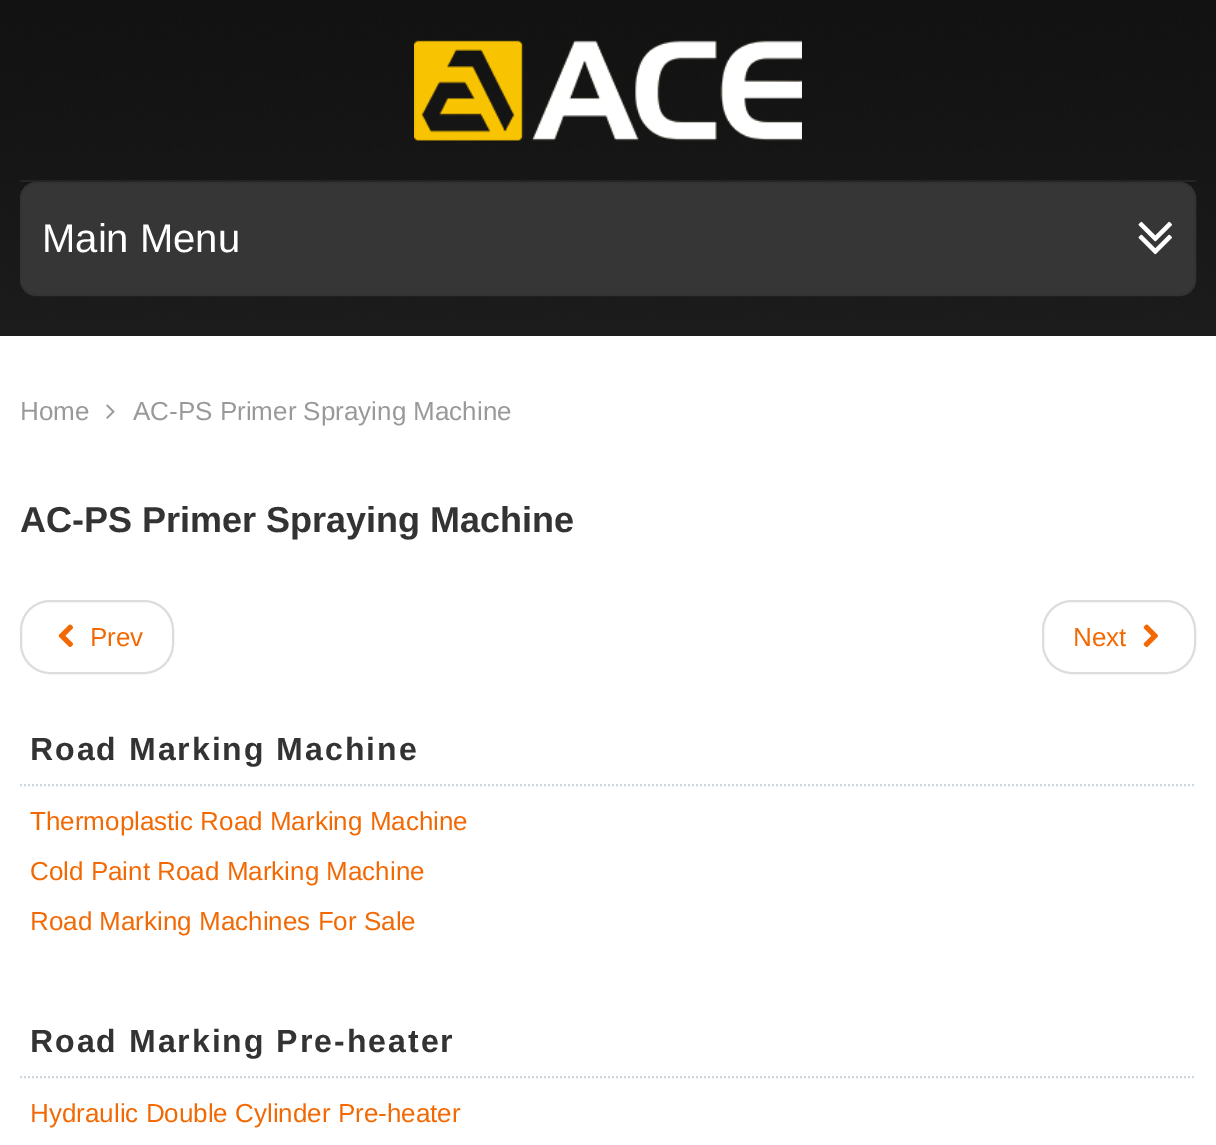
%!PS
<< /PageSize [1216 1145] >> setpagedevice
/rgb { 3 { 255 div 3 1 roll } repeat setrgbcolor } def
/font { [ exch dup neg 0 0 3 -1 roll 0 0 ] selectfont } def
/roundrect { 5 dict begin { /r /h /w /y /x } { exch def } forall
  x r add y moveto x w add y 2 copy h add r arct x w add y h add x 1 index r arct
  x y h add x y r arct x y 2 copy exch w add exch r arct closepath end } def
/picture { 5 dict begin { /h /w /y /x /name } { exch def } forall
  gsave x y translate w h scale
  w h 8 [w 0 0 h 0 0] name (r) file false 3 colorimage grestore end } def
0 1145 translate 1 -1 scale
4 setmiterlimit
255 255 255 rgb
0 0 1216 1145 rectfill
(img/1.rgb) 0 0 1216 336 picture
36 36 36 rgb
20 180 1176 2 rectfill
(img/2.rgb) 414 40 388 101 picture
54 54 54 rgb
21 183 1174 112 15 roundrect gsave fill grestore
51 51 51 rgb
2 setlinewidth
stroke
(img/3.rgb) 1138 221 34 34 picture
(img/4.rgb) 106 404 9 15 picture
221 221 221 rgb
21 601 152 72 29 roundrect stroke
(img/5.rgb) 58 624 15 23 picture
1043 601 152 72 29 roundrect stroke
(img/6.rgb) 1143 624 15 24 picture
206 216 223 rgb
[2 2] 0 setdash
20 785 moveto 1196 785 lineto stroke
20 1077 moveto 1196 1077 lineto stroke
/LiberationSans-Regular 40 font
255 255 255 rgb
42 252 moveto (Main Menu) show
/LiberationSans-Regular 26 font
153 153 153 rgb
20 420 moveto (Home) show
133 420 moveto (AC-PS Primer Spraying Machine) show
/LiberationSans-Bold 36 font
51 51 51 rgb
20 532 moveto (AC-PS Primer Spraying Machine) show
/LiberationSans-Regular 26 font
242 105 4 rgb
90 646 moveto (Prev) show
1073 646 moveto (Next) show
/LiberationSans-Bold 32 font
51 51 51 rgb
30 760 moveto 2 0 (Road Marking Machine) ashow
/LiberationSans-Regular 26 font
242 105 4 rgb
[
  [(Thermoplastic Road Marking Machine) 30 830]
  [(Cold Paint Road Marking Machine) 30 880]
  [(Road Marking Machines For Sale) 30 930]
] { aload pop moveto show } forall
/LiberationSans-Bold 32 font
51 51 51 rgb
30 1052 moveto 2 0 (Road Marking Pre-heater) ashow
/LiberationSans-Regular 26 font
242 105 4 rgb
30 1122 moveto (Hydraulic Double Cylinder Pre-heater) show
showpage
